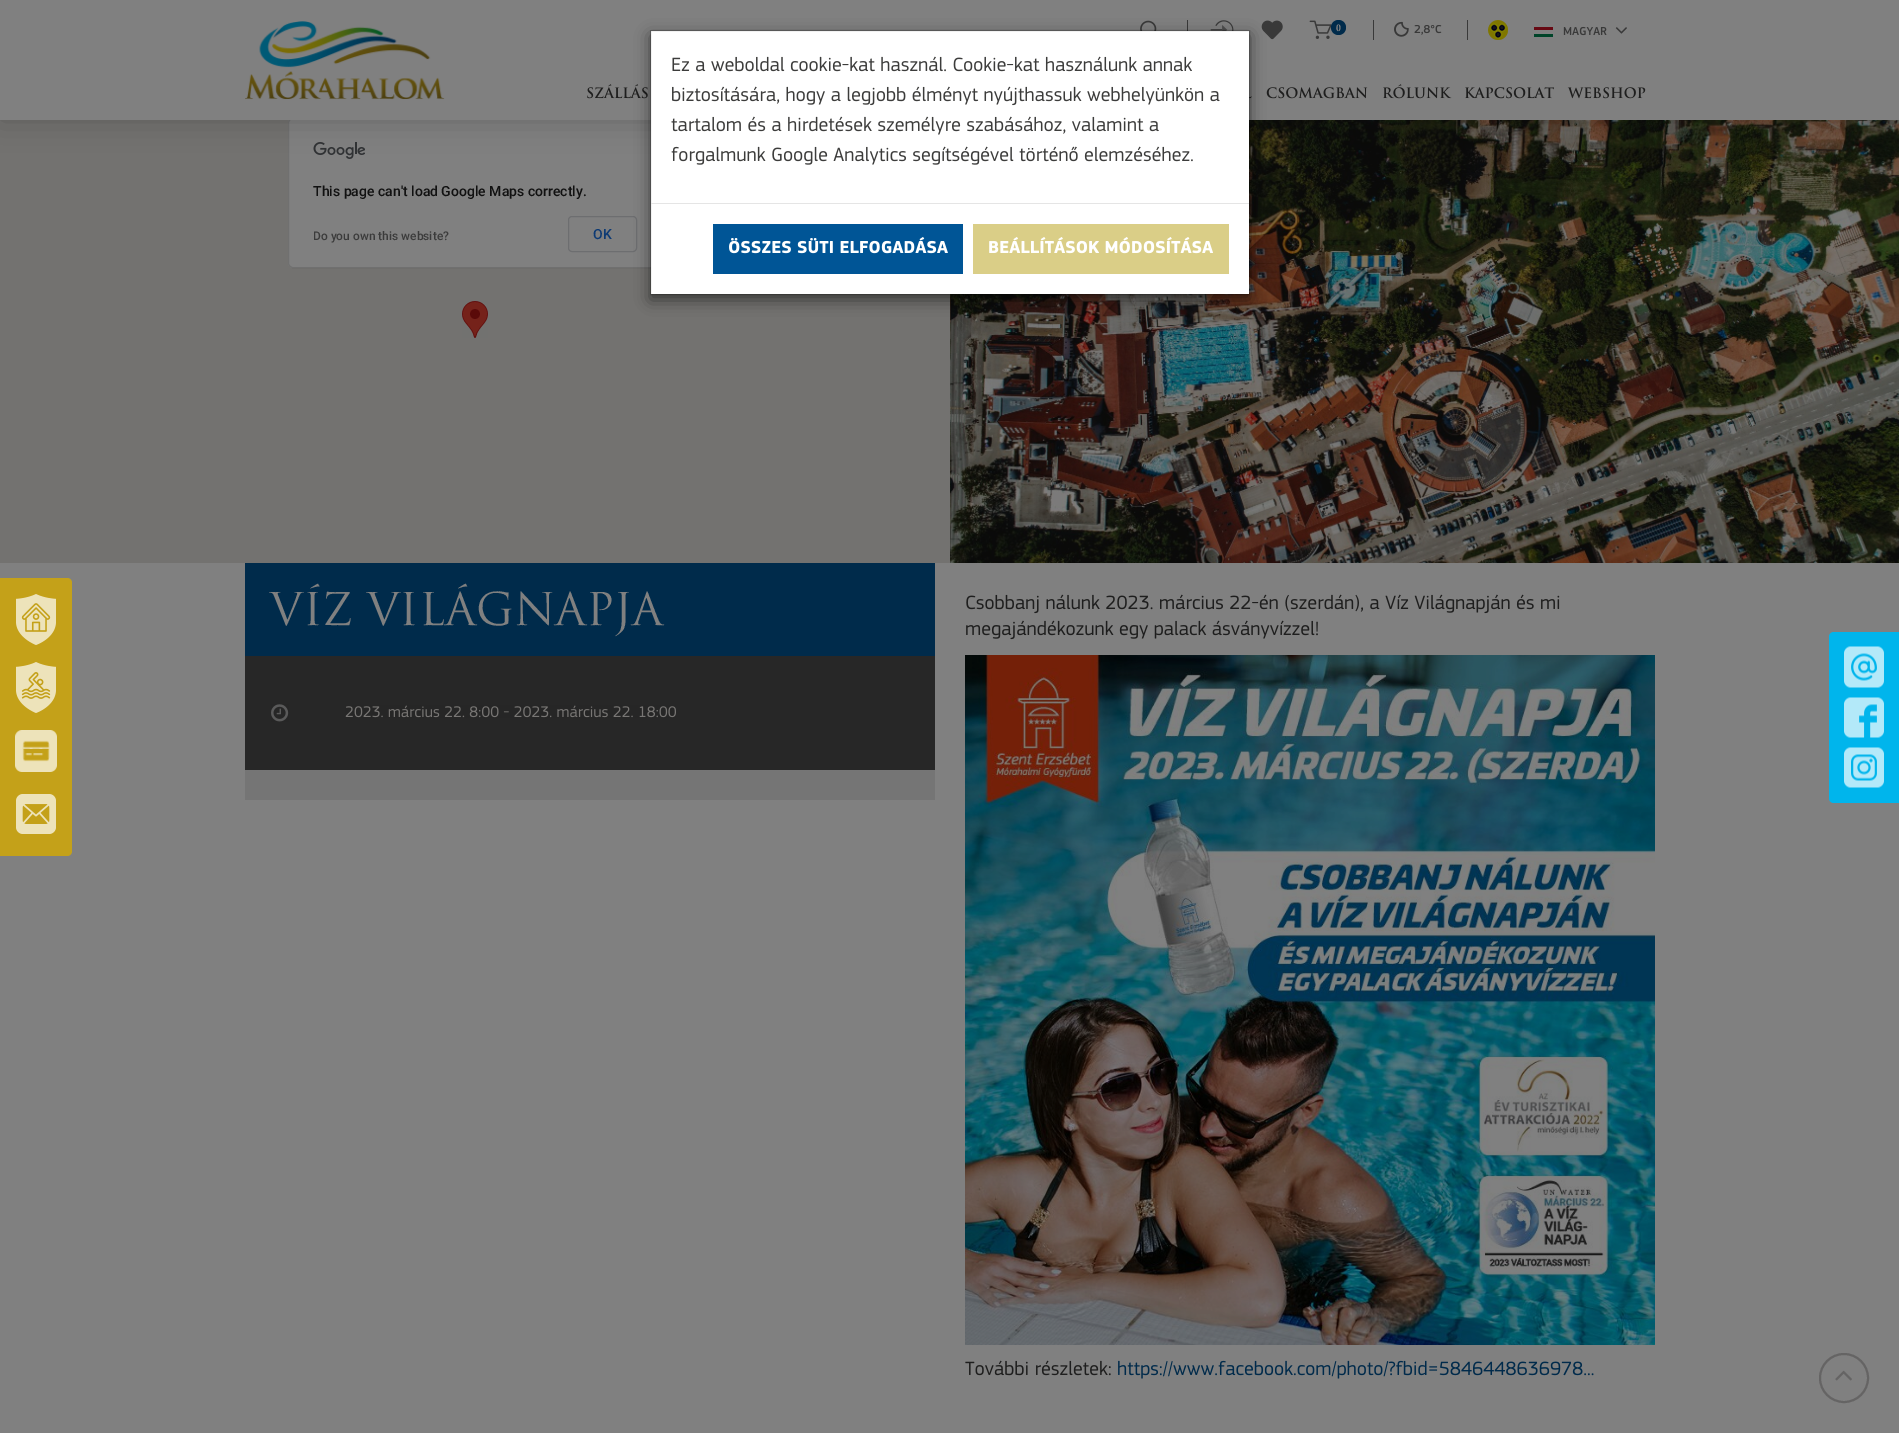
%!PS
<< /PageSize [1899 1433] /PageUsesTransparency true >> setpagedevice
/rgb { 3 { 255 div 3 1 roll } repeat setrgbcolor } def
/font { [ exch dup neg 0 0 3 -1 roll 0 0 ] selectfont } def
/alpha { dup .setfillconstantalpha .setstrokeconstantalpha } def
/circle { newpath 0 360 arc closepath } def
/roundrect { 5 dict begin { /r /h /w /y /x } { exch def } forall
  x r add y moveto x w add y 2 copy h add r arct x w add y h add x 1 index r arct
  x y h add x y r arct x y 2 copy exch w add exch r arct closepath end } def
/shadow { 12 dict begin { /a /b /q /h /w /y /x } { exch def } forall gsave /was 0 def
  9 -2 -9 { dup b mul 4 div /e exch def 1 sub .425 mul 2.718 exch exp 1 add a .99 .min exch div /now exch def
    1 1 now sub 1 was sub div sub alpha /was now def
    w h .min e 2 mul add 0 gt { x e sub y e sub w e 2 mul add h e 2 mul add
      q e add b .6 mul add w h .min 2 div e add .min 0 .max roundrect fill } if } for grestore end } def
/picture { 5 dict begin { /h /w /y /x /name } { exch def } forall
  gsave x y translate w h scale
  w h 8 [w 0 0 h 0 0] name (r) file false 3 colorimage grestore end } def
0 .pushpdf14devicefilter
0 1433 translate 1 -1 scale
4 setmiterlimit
128 128 128 rgb
0 0 1899 1433 rectfill
115 114 112 rgb
0 120 950 443 rectfill
128 128 128 rgb
288 118 375 150 5 roundrect fill
0.12 alpha
0 0 0 rgb
288.5 118.5 374 149 4.5 roundrect stroke
1 alpha
(img/31.rgb) 313 142 52 17 picture
(img/32.rgb) 950 120 949 443 picture
0 0 1899 120 0 15 0.2 shadow
128 128 128 rgb
0 0 1899 120 rectfill
(img/8.rgb) 1140 20 17 11 picture
57 57 57 rgb
1187 20 1 11 rectfill
(img/9.rgb) 1210 20 24 11 picture
(img/10.rgb) 1261 20 22 20 picture
(img/17.rgb) 587 84 61 15 picture
(img/18.rgb) 1249 96 3 3 picture
(img/19.rgb) 1266 87 102 12 picture
109 110 112 rgb
568.5 216.5 68 35 3.5 roundrect stroke
0 0 0 rgb
650 35 600 265 0 7.5 0.5 shadow
255 255 255 rgb
651 31 598 263 rectfill
0.2 alpha
0 0 0 rgb
650.5 30.5 599 264 rectstroke
1 alpha
(img/1.rgb) 672 56 520 16 picture
(img/2.rgb) 672 86 548 20 picture
(img/3.rgb) 671 116 488 19 picture
(img/4.rgb) 671 146 522 19 picture
229 229 229 rgb
651 203 598 1 rectfill
0 85 150 rgb
713 224 250 50 rectfill
(img/5.rgb) 729 237 219 17 picture
218 206 135 rgb
973 224 256 50 rectfill
(img/6.rgb) 989 237 224 17 picture
(img/7.rgb) 245 21 200 79 picture
(img/11.rgb) 1309 20 23 19 picture
0 43 75 rgb
1338.5 27.5 7.5 circle fill
57 57 57 rgb
1373 20 1 20 rectfill
(img/12.rgb) 1394 21 15 16 picture
(img/13.rgb) 1414 25 28 10 picture
1467 20 1 20 rectfill
(img/14.rgb) 1488 20 20 20 picture
103 9 19 rgb
1534 27 19 3 rectfill
(img/15.rgb) 1563 26 44 10 picture
(img/16.rgb) 1615 27 12 7 picture
0 68 41 rgb
1534 34 19 3 rectfill
(img/20.rgb) 1383 84 69 15 picture
(img/21.rgb) 1465 87 89 12 picture
(img/22.rgb) 1567 87 79 12 picture
196 161 25 rgb
0 578 moveto 67 578 lineto 70 578 72 580 72 583 curveto 72 851 lineto 72 854 70 856 67 856 curveto 0 856 lineto closepath fill
(img/23.rgb) 16 594 40 51 picture
(img/24.rgb) 16 662 40 51 picture
(img/25.rgb) 15 730 42 42 picture
(img/26.rgb) 16 794 40 40 picture
0 181 236 rgb
1834 632 moveto 1899 632 lineto 1899 803 lineto 1834 803 lineto 1831 803 1829 801 1829 798 curveto 1829 637 lineto 1829 634 1831 632 1834 632 curveto closepath fill
(img/27.rgb) 1844 646 40 42 picture
(img/28.rgb) 1844 697 40 41 picture
(img/29.rgb) 1844 747 40 41 picture
(img/30.rgb) 462 301 26 37 picture
0 43 75 rgb
245 563 690 93 rectfill
39 39 39 rgb
245 656 690 114 rectfill
(img/33.rgb) 271 704 18 18 picture
(img/34.rgb) 345 705 331 13 picture
117 117 117 rgb
245 770 690 30 rectfill
(img/35.rgb) 966 594 594 20 picture
(img/36.rgb) 966 620 352 20 picture
(img/37.rgb) 965 655 690 690 picture
(img/38.rgb) 965 1360 146 16 picture
(img/39.rgb) 1118 1360 476 19 picture
101 100 100 rgb
2 setlinewidth
1844 1378 24 circle stroke
(img/40.rgb) 1835 1370 17 11 picture
/LiberationSerif-Bold 10 font
128 128 128 rgb
1336 31 moveto (0) show
/Roboto-Medium 14 font
17 17 17 rgb
313 196 moveto (This page can't load Google Maps correctly.) show
/Roboto-Medium 12 font
59 59 59 rgb
313 240 moveto (Do you own this website?) show
/Roboto-Medium 14 font
13 58 116 rgb
593 239 moveto (OK) show
/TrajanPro-Regular 44 font
128 128 128 rgb
270 625 moveto (VÍZ VILÁGNAPJA) show
.poppdf14devicefilter showpage
